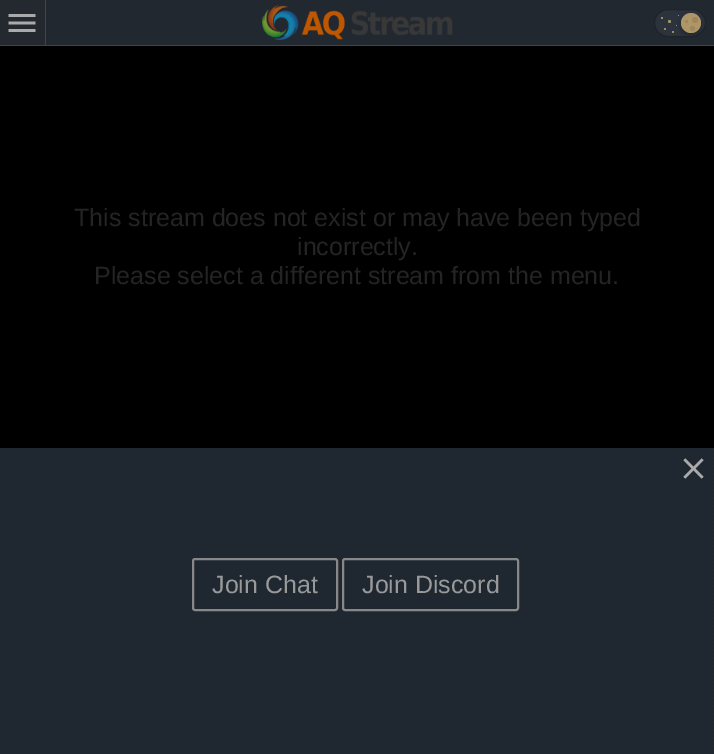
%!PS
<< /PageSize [714 754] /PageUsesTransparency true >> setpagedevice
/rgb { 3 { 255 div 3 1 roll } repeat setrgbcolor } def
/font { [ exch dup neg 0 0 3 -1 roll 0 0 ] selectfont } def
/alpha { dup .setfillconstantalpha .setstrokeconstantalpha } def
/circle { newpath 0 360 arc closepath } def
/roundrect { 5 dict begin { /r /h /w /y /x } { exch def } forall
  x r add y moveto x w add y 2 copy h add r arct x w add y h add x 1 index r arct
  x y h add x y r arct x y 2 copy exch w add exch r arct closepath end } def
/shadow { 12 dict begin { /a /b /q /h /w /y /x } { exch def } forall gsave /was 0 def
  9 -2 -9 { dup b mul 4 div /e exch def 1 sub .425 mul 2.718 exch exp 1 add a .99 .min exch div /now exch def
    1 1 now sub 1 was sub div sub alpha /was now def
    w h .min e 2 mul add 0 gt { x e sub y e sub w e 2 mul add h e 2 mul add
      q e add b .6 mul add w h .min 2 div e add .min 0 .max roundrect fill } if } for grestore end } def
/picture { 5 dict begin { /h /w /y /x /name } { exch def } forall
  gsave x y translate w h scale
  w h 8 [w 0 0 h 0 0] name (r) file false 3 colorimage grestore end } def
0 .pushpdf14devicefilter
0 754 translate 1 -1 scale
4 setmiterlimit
255 255 255 rgb
0 0 714 754 rectfill
(img/1.rgb) 713 448 1 306 picture
(img/2.rgb) 46 0 668 45 picture
[
  [46 45 668 1 68 68 68]
  [0 0 45 45 36 41 48]
  [45 0 1 46 68 68 68]
  [0 45 46 1 68 68 68]
] { aload pop rgb rectfill } forall
(img/3.rgb) 8 14 28 18 picture
(img/4.rgb) 262 5 191 35 picture
44 51 60 rgb
654.5 9.5 51 27 13.5 roundrect gsave fill grestore
30 35 41 rgb
stroke
gsave
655 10 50 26 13 roundrect clip newpath
0 0 0 rgb
681 15 20 20 10 3 0.3 shadow
grestore
156 148 104 rgb
678.5 15.5 0.5 circle fill
662 18 1 circle fill
669.5 21.5 1.5 circle fill
676.5 25.5 0.5 circle fill
665 29 1 circle fill
673 32 1 circle fill
175 150 103 rgb
691 23 10 circle fill
160 134 95 rgb
686.5 21.5 1.5 circle fill
695 20 3 circle fill
692.5 28.5 2.5 circle fill
0 0 0 rgb
0 46 714 402 rectfill
31 39 48 rgb
0 448 713 306 rectfill
(img/5.rgb) 683 458 21 21 picture
136 136 136 rgb
2 setlinewidth
193 559 144 51 2 roundrect stroke
343 559 175 51 2 roundrect stroke
/LiberationSans-Regular 25 font
36 36 36 rgb
[
  [(This stream does not exist or may have been typed) 74 226]
  [(incorrectly.) 297 255]
  [(Please select a different stream from the menu.) 94 284]
] { aload pop moveto show } forall
153 153 153 rgb
212 593 moveto (Join Chat) show
362 593 moveto (Join Discord) show
.poppdf14devicefilter showpage
